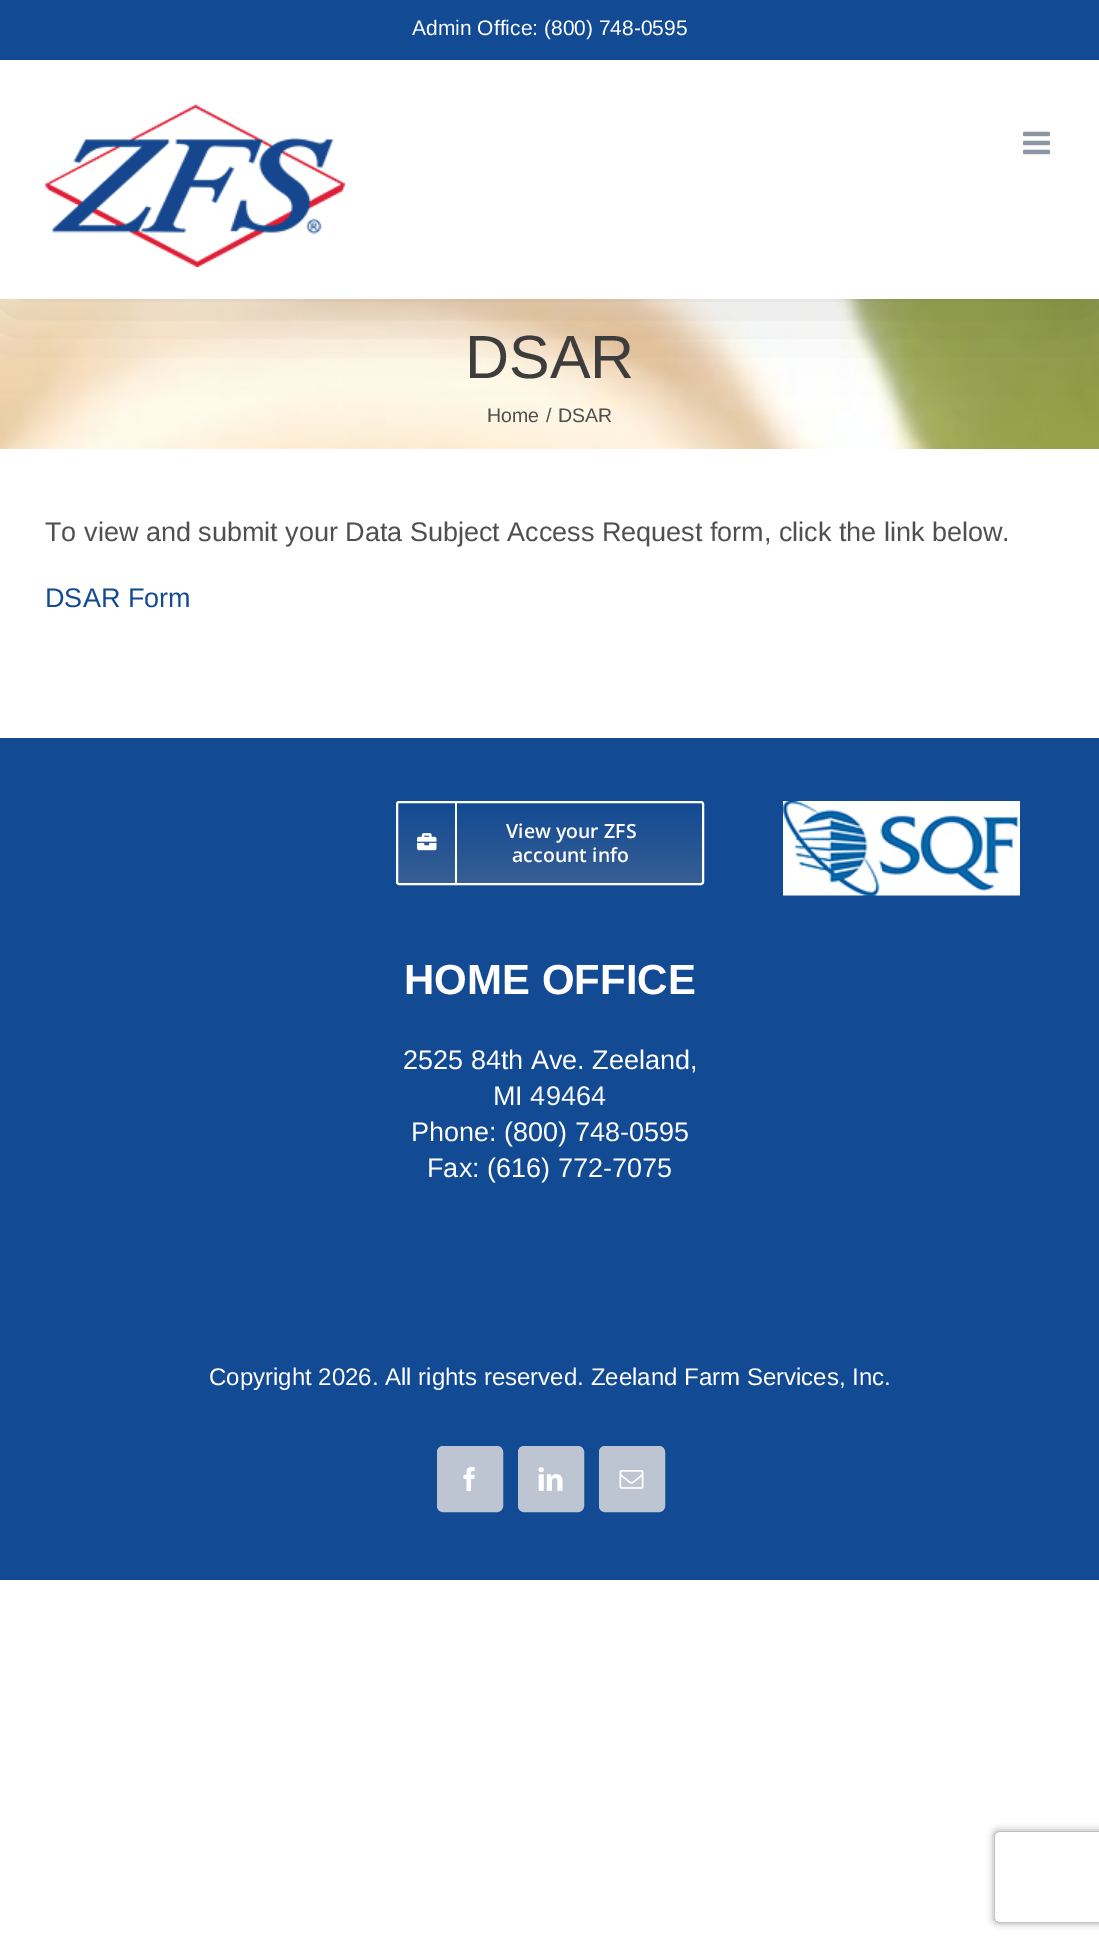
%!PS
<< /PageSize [1099 1942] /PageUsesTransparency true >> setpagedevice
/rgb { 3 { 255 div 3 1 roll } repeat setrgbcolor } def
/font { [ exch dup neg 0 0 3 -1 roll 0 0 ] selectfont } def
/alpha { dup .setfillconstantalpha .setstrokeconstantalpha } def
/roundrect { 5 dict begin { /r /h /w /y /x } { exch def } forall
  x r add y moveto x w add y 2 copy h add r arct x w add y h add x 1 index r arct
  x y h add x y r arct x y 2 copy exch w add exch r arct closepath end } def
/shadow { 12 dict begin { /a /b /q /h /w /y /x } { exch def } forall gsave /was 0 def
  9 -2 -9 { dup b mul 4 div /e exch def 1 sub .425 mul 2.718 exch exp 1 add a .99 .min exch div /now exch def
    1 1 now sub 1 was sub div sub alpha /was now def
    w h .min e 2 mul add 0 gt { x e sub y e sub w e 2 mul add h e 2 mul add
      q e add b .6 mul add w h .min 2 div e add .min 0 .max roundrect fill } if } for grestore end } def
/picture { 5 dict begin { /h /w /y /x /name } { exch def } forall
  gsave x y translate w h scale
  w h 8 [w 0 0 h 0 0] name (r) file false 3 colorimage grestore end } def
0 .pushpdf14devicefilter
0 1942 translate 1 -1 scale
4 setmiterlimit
255 255 255 rgb
0 0 1099 1942 rectfill
(img/3.rgb) 0 299 1099 150 picture
0 0 0 rgb
3 18 1094 293 0 37.5 0.14 shadow
18 74 147 rgb
0 0 1099 60 rectfill
255 255 255 rgb
0 60 1099 239 rectfill
(img/1.rgb) 45 104 300 163 picture
(img/2.rgb) 1023 131 27 24 picture
18 74 147 rgb
0 738 1099 842 rectfill
gsave
396 801 308 84 3 roundrect clip newpath
gsave 396 803 moveto 704 803 lineto 704 884 lineto 396 884 lineto closepath clip newpath
<< /ShadingType 2 /ColorSpace /DeviceRGB /Coords [550 803 550 884] /Extend [true true] /Function << /FunctionType 2 /Domain [0 1] /C0 [0.071 0.29 0.576] /C1 [0.22 0.373 0.576] /N 1 >> >> shfill grestore
grestore
255 255 255 rgb
2 setlinewidth
397 802 306 82 2 roundrect stroke
455 803 2 81 rectfill
(img/4.rgb) 417 833 20 18 picture
(img/5.rgb) 783 801 237 95 picture
188 197 209 rgb
438 1447 64 64 5 roundrect gsave fill grestore
stroke
(img/6.rgb) 463 1467 12 24 picture
519 1447 64 64 5 roundrect gsave fill grestore
stroke
(img/7.rgb) 538 1467 25 24 picture
600 1447 64 64 5 roundrect gsave fill grestore
stroke
(img/8.rgb) 619 1470 25 19 picture
gsave
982 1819 moveto 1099 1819 lineto 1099 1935 lineto 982 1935 lineto closepath 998 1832 moveto 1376 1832 lineto 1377.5 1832 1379 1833.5 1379 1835 curveto 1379 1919 lineto 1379 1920.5 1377.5 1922 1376 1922 curveto 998 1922 lineto 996.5 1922 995 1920.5 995 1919 curveto 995 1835 lineto 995 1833.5 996.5 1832 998 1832 curveto closepath eoclip newpath
128 128 128 rgb
995 1832 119 90 3 4 1 shadow
grestore
/LiberationSans-Regular 21 font
255 255 255 rgb
412 35 moveto (Admin Office: \(800\) 748-0595) show
/LiberationSans-Regular 61 font
61 61 61 rgb
465 378 moveto (DSAR) show
/LiberationSans-Regular 19.5 font
79 79 79 rgb
[
  [(Home) 487 422]
  [(/) 546 422]
  [(DSAR) 558 422]
] { aload pop moveto show } forall
/LiberationSans-Regular 27 font
45 541 moveto (To view and submit your Data Subject Access Request form, click the link below.) show
18 74 147 rgb
45 607 moveto (DSAR Form) show
/OpenSans-SemiBold 19.5 font
255 255 255 rgb
506 838 moveto (View your ZFS) show
512 862 moveto (account info) show
/LiberationSans-Bold 42 font
404 994 moveto (HOME OFFICE) show
/LiberationSans-Regular 27 font
[
  [(2525 84th Ave. Zeeland,) 403 1069]
  [(MI 49464) 493 1105]
  [(Phone: \(800\) 748-0595) 411 1141]
  [(Fax: \(616\) 772-7075) 427 1177]
] { aload pop moveto show } forall
/LiberationSans-Regular 24 font
209 1385 moveto (Copyright 2026. All rights reserved. Zeeland Farm Services, Inc.) show
.poppdf14devicefilter showpage
